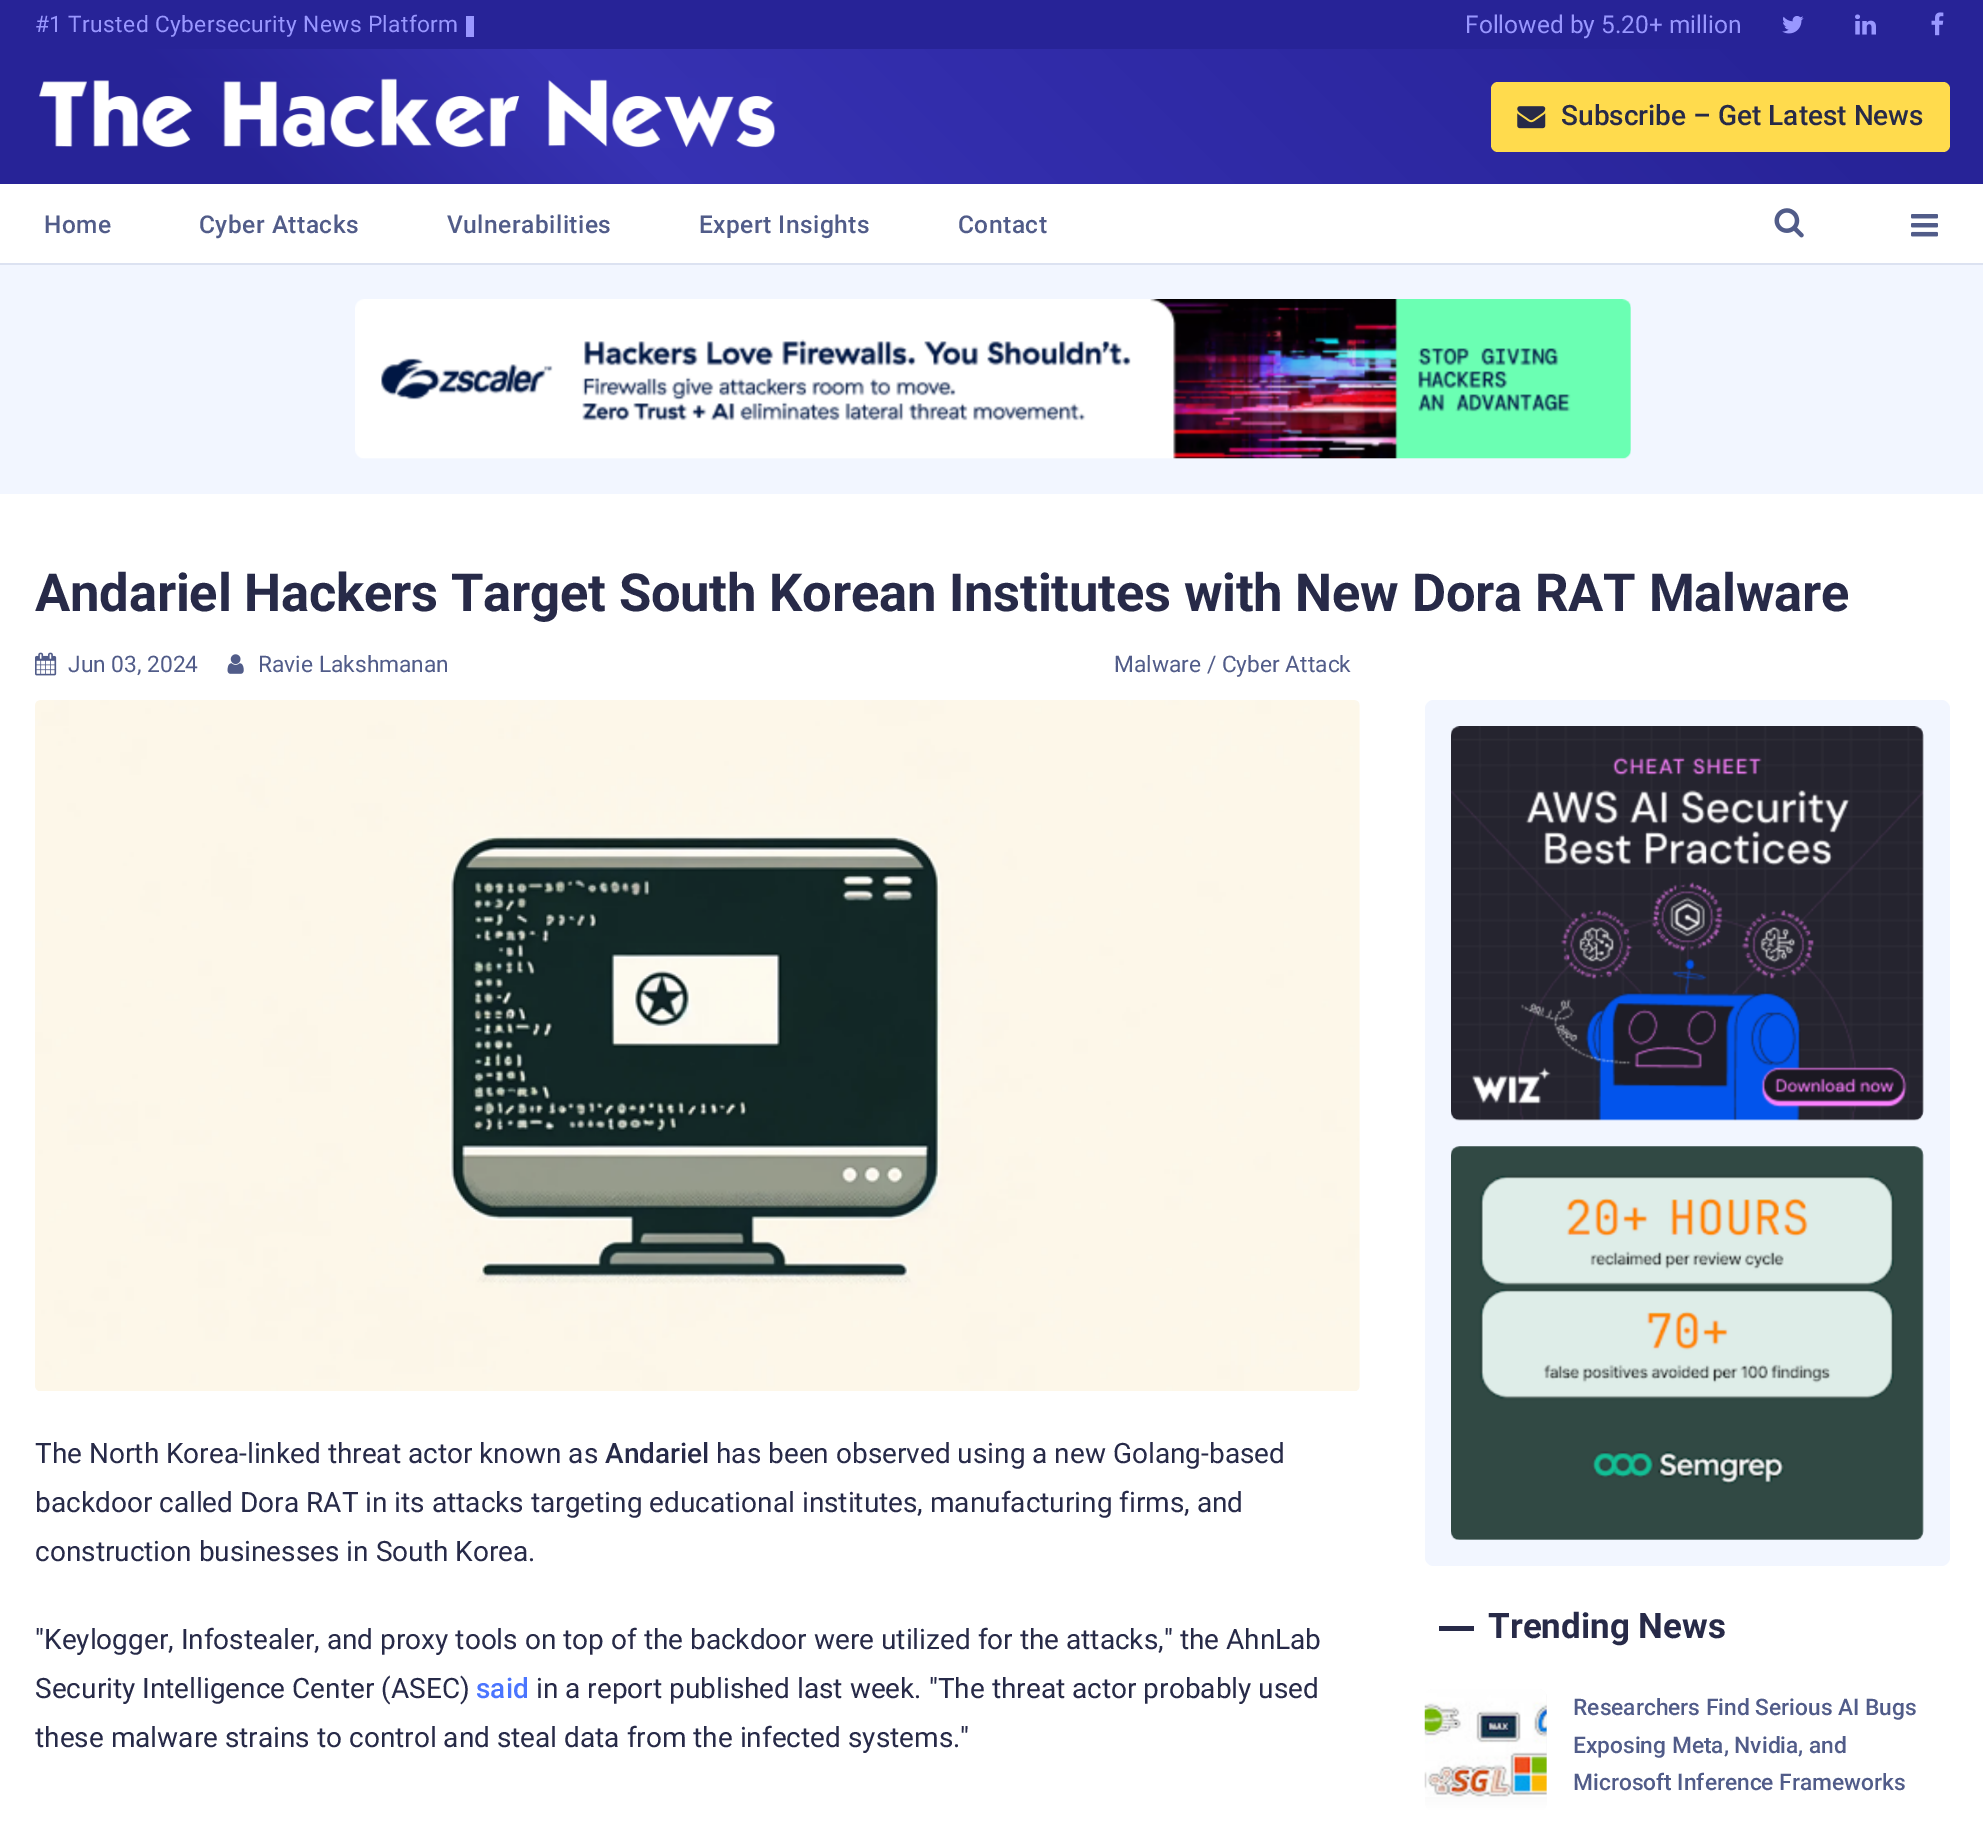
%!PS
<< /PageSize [1983 1826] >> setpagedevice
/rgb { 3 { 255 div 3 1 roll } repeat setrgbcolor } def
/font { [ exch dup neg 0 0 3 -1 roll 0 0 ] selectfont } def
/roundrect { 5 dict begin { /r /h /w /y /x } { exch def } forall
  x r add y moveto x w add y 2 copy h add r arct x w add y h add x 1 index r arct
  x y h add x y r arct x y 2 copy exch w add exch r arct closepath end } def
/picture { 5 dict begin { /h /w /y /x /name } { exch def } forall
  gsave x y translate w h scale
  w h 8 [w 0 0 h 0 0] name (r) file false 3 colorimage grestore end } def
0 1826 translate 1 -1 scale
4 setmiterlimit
242 246 255 rgb
0 0 1983 1826 rectfill
gsave 0 49 moveto 1983 49 lineto 1983 184 lineto 0 184 lineto closepath clip newpath
<< /ShadingType 2 /ColorSpace /DeviceRGB /Coords [450 634 1534 -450] /Extend [true true] /Function << /FunctionType 3 /Domain [0 1] /Functions [<< /FunctionType 2 /Domain [0 1] /C0 [0.153 0.137 0.592] /C1 [0.153 0.137 0.592] /N 1 >> << /FunctionType 2 /Domain [0 1] /C0 [0.153 0.137 0.592] /C1 [0.216 0.196 0.702] /N 1 >> << /FunctionType 2 /Domain [0 1] /C0 [0.216 0.196 0.702] /C1 [0.153 0.137 0.592] /N 1 >> << /FunctionType 2 /Domain [0 1] /C0 [0.153 0.137 0.592] /C1 [0.153 0.137 0.592] /N 1 >>] /Bounds [0.12 0.31 0.9] /Encode [0 1 0 1 0 1 0 1] >> >> shfill grestore
39 35 151 rgb
0 0 1983 49 rectfill
153 151 255 rgb
466 16 8 21 rectfill
(img/1.rgb) 1782 16 22 18 picture
(img/2.rgb) 1855 14 21 21 picture
(img/3.rgb) 1931 12 13 24 picture
(img/4.rgb) 39 78 737 70 picture
255 219 77 rgb
1491 82 459 70 7 roundrect fill
(img/5.rgb) 1517 106 29 23 picture
255 255 255 rgb
0 184 1983 79 rectfill
220 226 241 rgb
0 263 1983 2 rectfill
(img/6.rgb) 1774 208 30 30 picture
(img/7.rgb) 1911 214 27 23 picture
(img/8.rgb) 355 299 1276 160 picture
255 255 255 rgb
0 494 1983 1332 rectfill
(img/9.rgb) 35 652 22 24 picture
(img/10.rgb) 227 654 17 20 picture
(img/11.rgb) 35 700 1325 691 picture
242 246 255 rgb
1425 700 525 866 9 roundrect fill
(img/12.rgb) 1451 726 473 395 picture
(img/13.rgb) 1451 1146 473 394 picture
39 42 72 rgb
1439 1626 35 5 rectfill
gsave 1425 1689 122 122 9 roundrect clip newpath
<< /ShadingType 2 /ColorSpace /DeviceRGB /Coords [1486 1689 1486 1811] /Extend [true true] /Function << /FunctionType 3 /Domain [0 1] /Functions [<< /FunctionType 2 /Domain [0 1] /C0 [0.949 0.949 0.949] /C1 [0.949 0.949 0.949] /N 1 >> << /FunctionType 2 /Domain [0 1] /C0 [0.949 0.949 0.949] /C1 [1 1 1] /N 1 >>] /Bounds [0.66] /Encode [0 1 0 1] >> >> shfill grestore
(img/14.rgb) 1424 1689 123 108 picture
/Roboto-Regular 22.75 font
153 151 255 rgb
35 32 moveto 0.35 0 (#1 Trusted Cybersecurity News Platform) ashow
/Roboto-Regular 24.5 font
1465 33 moveto (Followed by 5.20+ million) show
/Roboto-Medium 28 font
39 42 72 rgb
1561 125 moveto (Subscribe – Get Latest News) show
/Roboto-Medium 24.5 font
81 92 137 rgb
44 233 moveto 0.5 0 (Home) ashow
199 233 moveto 0.5 0 (Cyber Attacks) ashow
447 233 moveto 0.5 0 (Vulnerabilities) ashow
699 233 moveto 0.5 0 (Expert Insights) ashow
958 233 moveto 0.5 0 (Contact) ashow
/Roboto-Bold 52.5 font
39 42 72 rgb
35 611 moveto -0.18 0 (Andariel Hackers Target South Korean Institutes with New Dora RAT Malware) ashow
/Roboto-Regular 22.75 font
81 92 137 rgb
[
  [(Jun 03, 2024) 68 672]
  [(Ravie Lakshmanan) 258 672]
  [(Malware / Cyber Attack) 1114 672]
] { aload pop moveto show } forall
/Roboto-Regular 28 font
39 42 72 rgb
35 1463 moveto (The North Korea-linked threat actor known as) show
/Roboto-Medium 28 font
605 1463 moveto (Andariel) show
/Roboto-Regular 28 font
[
  [(has been observed using a new Golang-based) 716 1463]
  [(backdoor called Dora RAT in its attacks targeting educational institutes, manufacturing firms, and) 35 1512]
  [(construction businesses in South Korea.) 35 1561]
  [("Keylogger, Infostealer, and proxy tools on top of the backdoor were utilized for the attacks," the AhnLab) 35 1649]
  [(Security Intelligence Center \(ASEC\)) 35 1698]
] { aload pop moveto show } forall
/Roboto-Medium 28 font
74 117 255 rgb
476 1698 moveto (said) show
/Roboto-Regular 28 font
39 42 72 rgb
536 1698 moveto (in a report published last week. "The threat actor probably used) show
35 1747 moveto (these malware strains to control and steal data from the infected systems.") show
/Roboto-Bold 35 font
1488 1638 moveto (Trending News) show
/Roboto-Medium 22.75 font
81 92 137 rgb
[
  [(Researchers Find Serious AI Bugs) 1573 1715]
  [(Exposing Meta, Nvidia, and) 1573 1753]
  [(Microsoft Inference Frameworks) 1573 1790]
] { aload pop moveto show } forall
showpage
